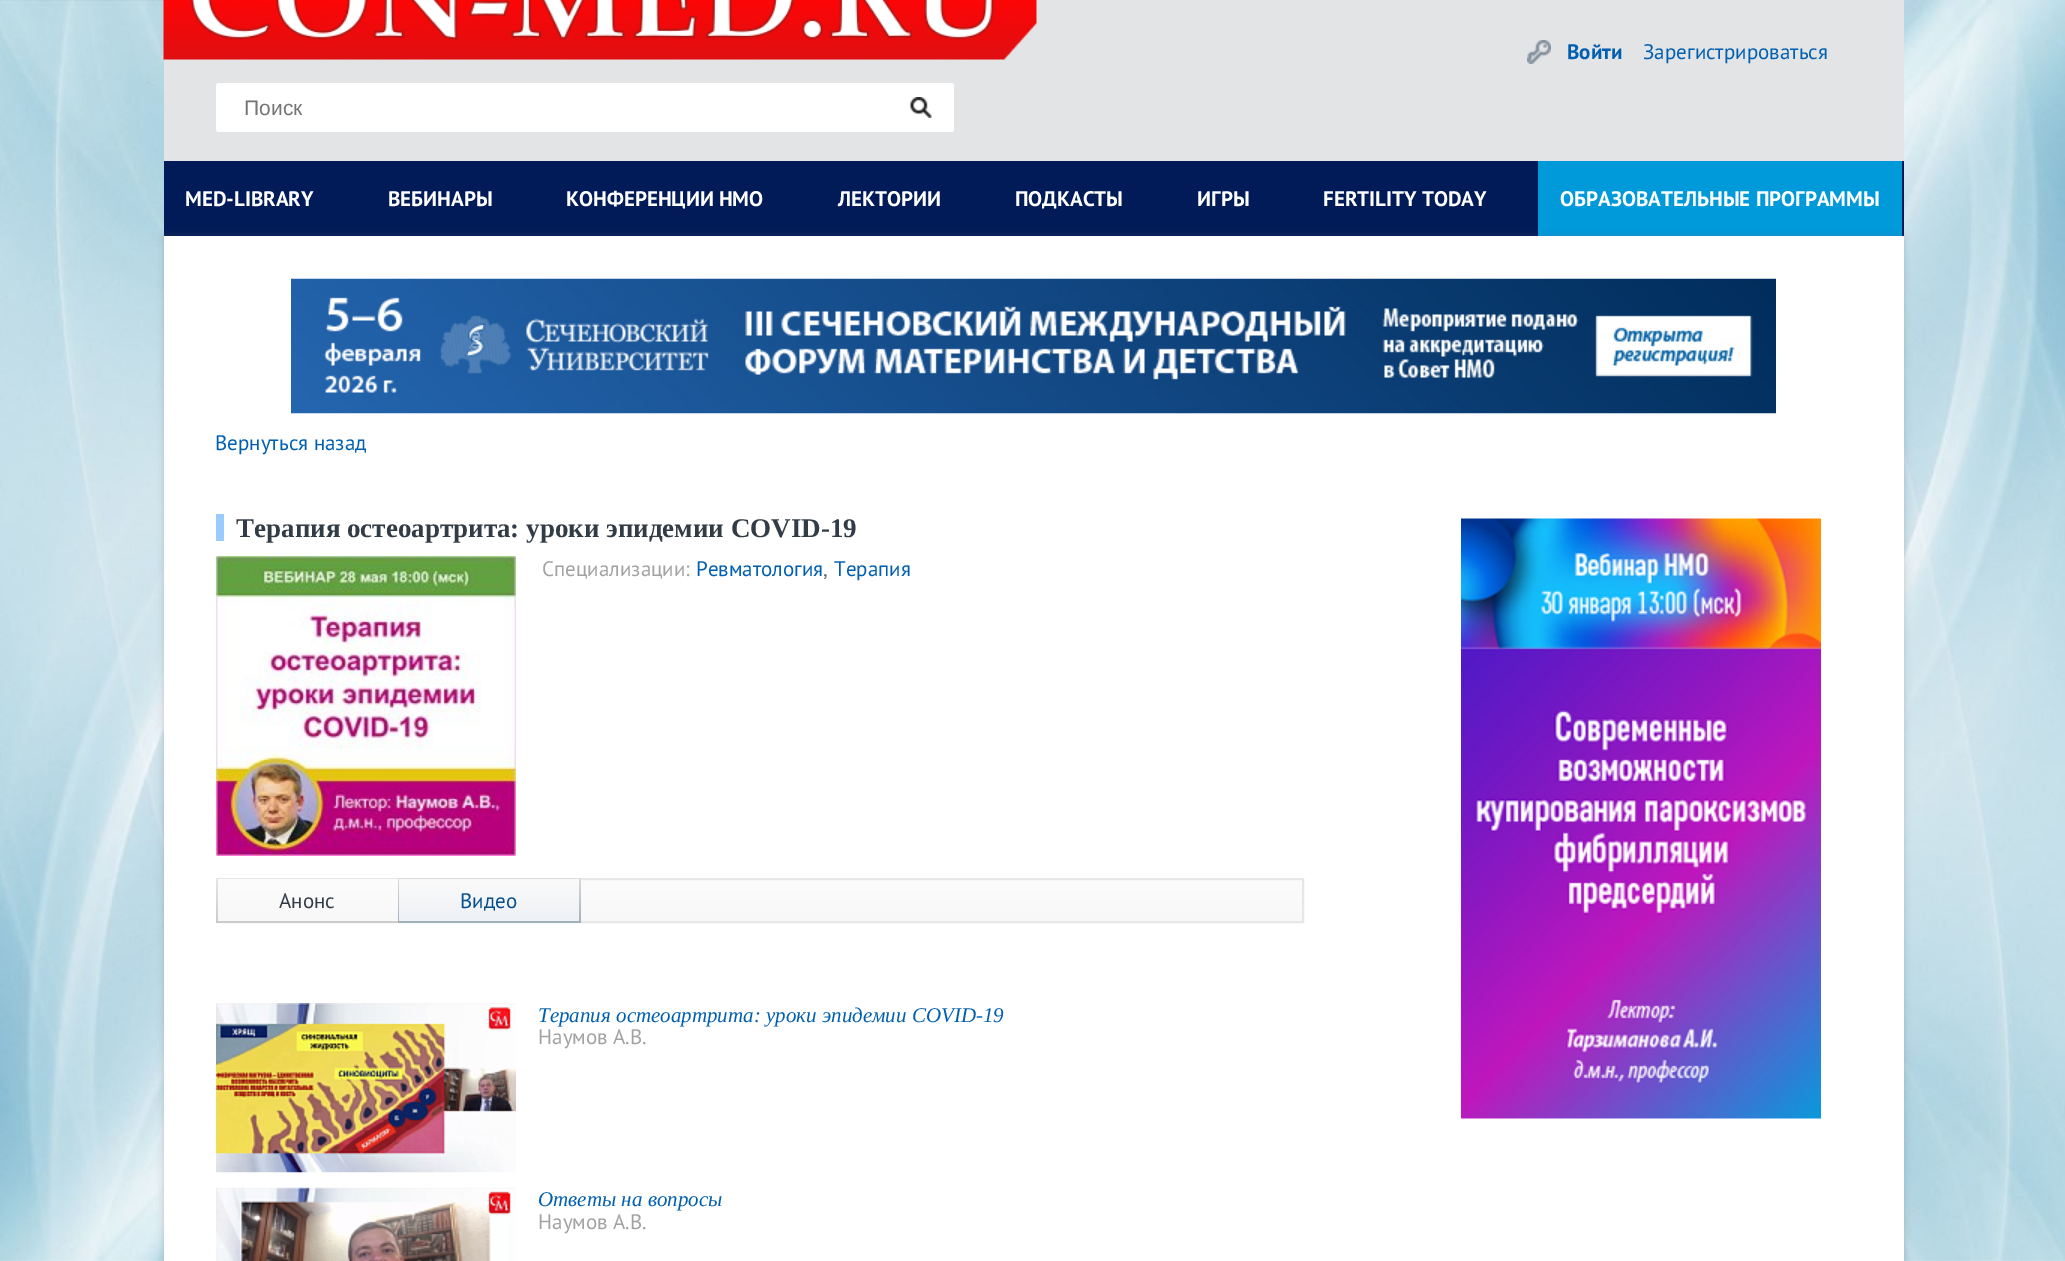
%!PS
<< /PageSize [2065 1261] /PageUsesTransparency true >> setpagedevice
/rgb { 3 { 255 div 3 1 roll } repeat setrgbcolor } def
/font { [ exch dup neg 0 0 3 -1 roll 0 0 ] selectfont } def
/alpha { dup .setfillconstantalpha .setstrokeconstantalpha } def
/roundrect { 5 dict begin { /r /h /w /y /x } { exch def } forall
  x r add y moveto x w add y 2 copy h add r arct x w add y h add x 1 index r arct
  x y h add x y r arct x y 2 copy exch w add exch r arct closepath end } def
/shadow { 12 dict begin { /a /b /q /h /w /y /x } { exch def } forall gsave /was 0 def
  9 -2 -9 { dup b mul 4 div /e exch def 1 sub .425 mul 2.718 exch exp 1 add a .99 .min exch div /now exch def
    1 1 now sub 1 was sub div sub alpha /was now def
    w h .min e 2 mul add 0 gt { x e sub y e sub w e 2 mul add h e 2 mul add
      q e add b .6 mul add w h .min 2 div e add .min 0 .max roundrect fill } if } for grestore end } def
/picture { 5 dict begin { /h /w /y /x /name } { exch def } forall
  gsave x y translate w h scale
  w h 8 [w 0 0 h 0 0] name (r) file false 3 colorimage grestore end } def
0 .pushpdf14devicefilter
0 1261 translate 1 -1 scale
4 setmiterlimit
255 255 255 rgb
0 0 2065 1261 rectfill
(img/1.rgb) 0 0 2065 1261 picture
227 228 230 rgb
164 0 1740 161 rectfill
(img/2.rgb) 1527 40 24 24 picture
(img/3.rgb) 163 0 874 60 picture
255 255 255 rgb
216 83 738 49 3 roundrect fill
888 83 66 49 3 roundrect fill
(img/4.rgb) 910 97 22 21 picture
1 27 88 rgb
164 161 1740 75 rectfill
0 154 218 rgb
1538 161 364 75 rectfill
102 108 115 rgb
164 237 1740 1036 0 4 0.31 shadow
255 255 255 rgb
164 236 1740 1025 rectfill
(img/5.rgb) 291 278 1485 136 picture
153 204 253 rgb
216 514 8 27 rectfill
(img/6.rgb) 216 556 300 300 picture
gsave 581 880 moveto 1302 880 lineto 1302 921 lineto 581 921 lineto closepath clip newpath
<< /ShadingType 2 /ColorSpace /DeviceRGB /Coords [760 879 760 921] /Extend [true true] /Function << /FunctionType 2 /Domain [0 1] /C0 [0.988 0.988 0.988] /C1 [0.973 0.973 0.973] /N 1 >> >> shfill grestore
231 231 231 rgb
2 setlinewidth
217 879 1086 43 rectstroke
gsave 216 880 moveto 398 880 lineto 398 923 lineto 216 923 lineto closepath clip newpath
<< /ShadingType 2 /ColorSpace /DeviceRGB /Coords [308 878 308 923] /Extend [true true] /Function << /FunctionType 2 /Domain [0 1] /C0 [0.902 0.902 0.902] /C1 [0.796 0.796 0.796] /N 1 >> >> shfill grestore
gsave 218 879 moveto 398 879 lineto 398 921 lineto 218 921 lineto closepath clip newpath
<< /ShadingType 2 /ColorSpace /DeviceRGB /Coords [308 879 308 921] /Extend [true true] /Function << /FunctionType 2 /Domain [0 1] /C0 [0.988 0.988 0.988] /C1 [0.973 0.973 0.973] /N 1 >> >> shfill grestore
gsave 398 878 moveto 581 878 lineto 581 923 lineto 398 923 lineto closepath clip newpath
<< /ShadingType 2 /ColorSpace /DeviceRGB /Coords [489 878 489 923] /Extend [true true] /Function << /FunctionType 2 /Domain [0 1] /C0 [0.863 0.863 0.863] /C1 [0.635 0.69 0.737] /N 1 >> >> shfill grestore
gsave 399 879 moveto 579 879 lineto 579 921 lineto 399 921 lineto closepath clip newpath
<< /ShadingType 2 /ColorSpace /DeviceRGB /Coords [489 879 489 921] /Extend [true true] /Function << /FunctionType 2 /Domain [0 1] /C0 [0.98 0.98 0.98] /C1 [0.933 0.945 0.961] /N 1 >> >> shfill grestore
(img/7.rgb) 216 1003 300 170 picture
(img/8.rgb) 216 1187 300 74 picture
(img/9.rgb) 1461 518 360 601 picture
/PTSans-Bold 21 font
0 95 176 rgb
1567 59 moveto (Войти) show
/PTSans-Regular 21 font
1643 59 moveto (Зарегистрироваться) show
/LiberationSans-Regular 21 font
117 117 117 rgb
244 115 moveto (Поиск) show
/PTSans-Bold 21 font
255 255 255 rgb
[
  [(MED-LIBRARY) 185 206]
  [(ВЕБИНАРЫ) 388 206]
  [(КОНФЕРЕНЦИИ НМО) 566 206]
  [(ЛЕКТОРИИ) 838 206]
  [(ПОДКАСТЫ) 1015 206]
  [(ИГРЫ) 1197 206]
  [(FERTILITY TODAY) 1323 206]
  [(ОБРАЗОВАТЕЛЬНЫЕ ПРОГРАММЫ) 1560 206]
] { aload pop moveto show } forall
/PTSans-Regular 21 font
0 95 176 rgb
215 450 moveto (Вернуться назад) show
/LiberationSerif-Bold 27 font
50 60 70 rgb
236 537 moveto (Терапия остеоартрита: уроки эпидемии COVID-19) show
/PTSans-Regular 21 font
162 162 162 rgb
542 576 moveto (Специализации:) show
0 95 176 rgb
696 576 moveto (Ревматология) show
100 108 117 rgb
823 576 moveto (,) show
0 95 176 rgb
834 576 moveto (Терапия) show
50 60 70 rgb
279 908 moveto (Анонс) show
5 79 142 rgb
460 908 moveto (Видео) show
/LiberationSerif-Italic 21 font
0 95 176 rgb
538 1022 moveto (Терапия остеоартрита: уроки эпидемии COVID-19) show
/PTSans-Regular 21 font
162 162 162 rgb
538 1044 moveto (Наумов А.В.) show
/LiberationSerif-Italic 21 font
0 95 176 rgb
538 1206 moveto (Ответы на вопросы) show
/PTSans-Regular 21 font
162 162 162 rgb
538 1229 moveto (Наумов А.В.) show
.poppdf14devicefilter showpage
